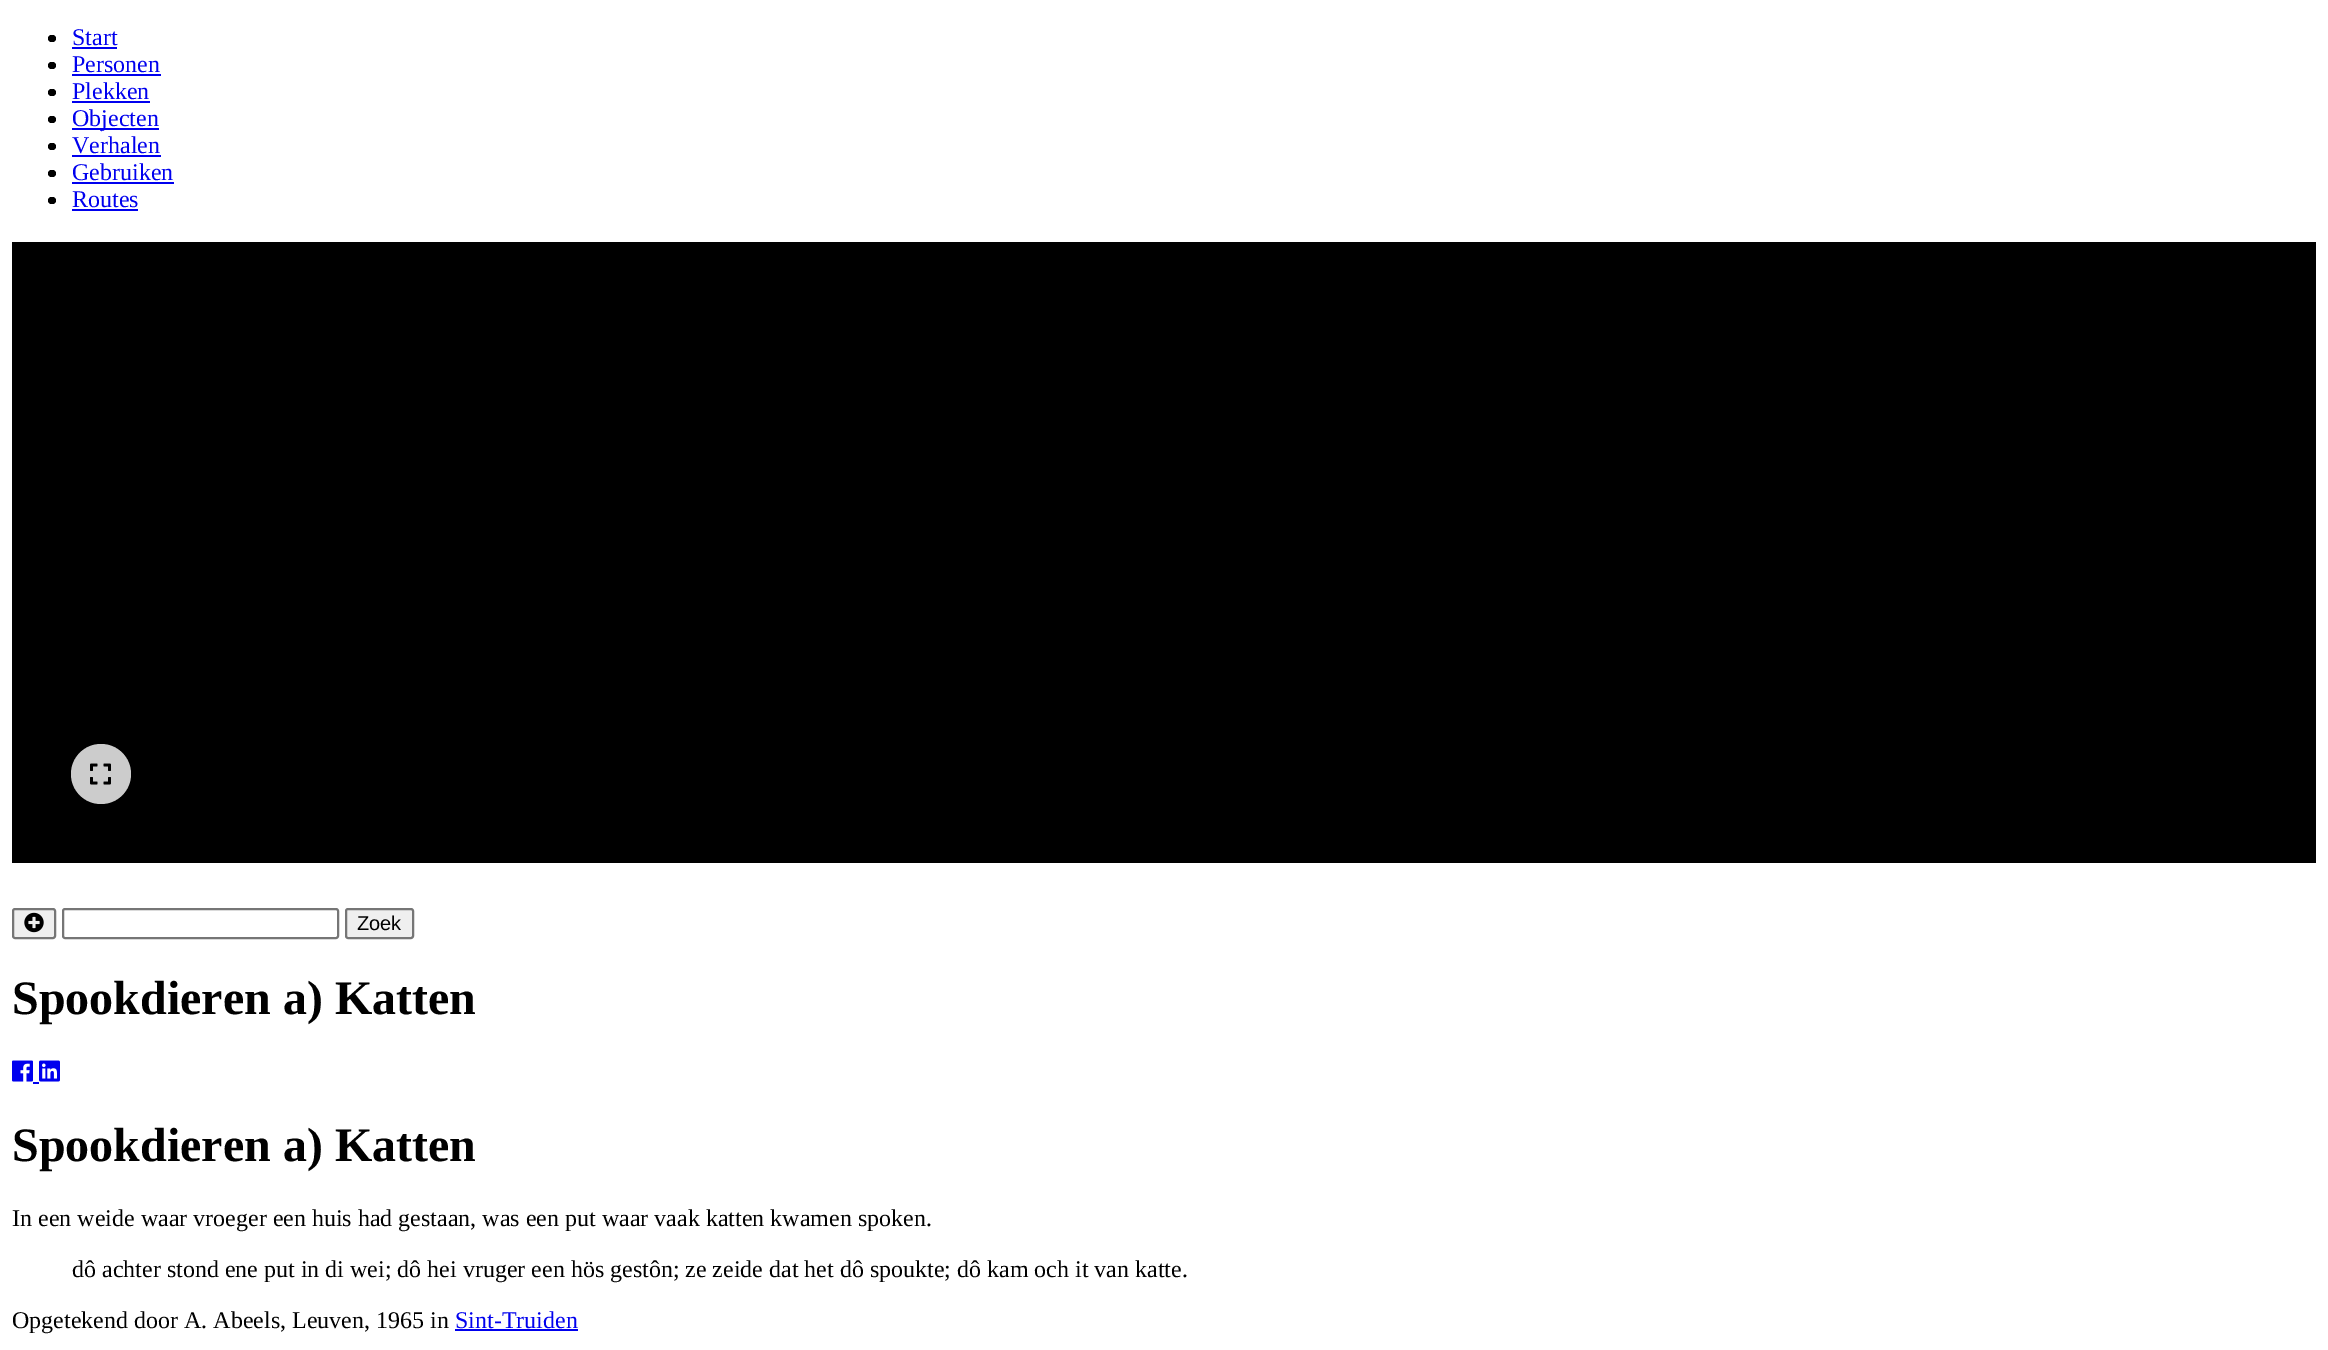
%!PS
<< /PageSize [2328 1350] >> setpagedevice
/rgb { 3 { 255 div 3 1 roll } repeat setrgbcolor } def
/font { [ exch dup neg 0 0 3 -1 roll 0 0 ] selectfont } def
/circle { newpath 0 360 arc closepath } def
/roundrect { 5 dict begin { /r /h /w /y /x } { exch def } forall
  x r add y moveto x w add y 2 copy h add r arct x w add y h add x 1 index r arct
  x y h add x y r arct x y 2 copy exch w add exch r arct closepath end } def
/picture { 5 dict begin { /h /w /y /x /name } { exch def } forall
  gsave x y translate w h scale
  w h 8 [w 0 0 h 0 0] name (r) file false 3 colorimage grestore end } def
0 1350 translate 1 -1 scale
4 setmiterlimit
255 255 255 rgb
0 0 2328 1350 rectfill
0 0 0 rgb
48 35 8 7 3.5 roundrect fill
0 0 238 rgb
72 47 45 2 rectfill
0 0 0 rgb
48 62 8 7 3.5 roundrect fill
0 0 238 rgb
72 74 89 2 rectfill
0 0 0 rgb
48 89 8 7 3.5 roundrect fill
0 0 238 rgb
72 101 78 2 rectfill
0 0 0 rgb
48 116 8 7 3.5 roundrect fill
0 0 238 rgb
72 128 87 2 rectfill
0 0 0 rgb
48 143 8 7 3.5 roundrect fill
0 0 238 rgb
72 155 89 2 rectfill
0 0 0 rgb
48 170 8 7 3.5 roundrect fill
0 0 238 rgb
72 182 102 2 rectfill
0 0 0 rgb
48 197 8 7 3.5 roundrect fill
0 0 238 rgb
72 209 66 2 rectfill
0 0 0 rgb
12 242 2304 621 rectfill
204 204 204 rgb
101 774 30 circle fill
(img/1.rgb) 90 763 21 22 picture
239 239 239 rgb
13 909 42 29 2 roundrect gsave fill grestore
118 118 118 rgb
2 setlinewidth
stroke
(img/2.rgb) 24 912 20 21 picture
63 909 275 29 2 roundrect stroke
239 239 239 rgb
346 909 67 29 2 roundrect gsave fill grestore
118 118 118 rgb
stroke
(img/3.rgb) 12 1060 21 22 picture
0 0 238 rgb
33 1082 6 2 rectfill
(img/4.rgb) 39 1060 21 22 picture
455 1329 123 2 rectfill
/LiberationSerif-Regular 24 font
[
  [(Start) 72 45]
  [(Personen) 72 72]
  [(Plekken) 72 99]
  [(Objecten) 72 126]
  [(Verhalen) 72 153]
  [(Gebruiken) 72 180]
  [(Routes) 72 207]
] { aload pop moveto show } forall
/LiberationSans-Regular 20 font
0 0 0 rgb
357 930 moveto (Zoek) show
/LiberationSerif-Bold 48 font
12 1014 moveto (Spookdieren a\) Katten) show
12 1161 moveto (Spookdieren a\) Katten) show
/LiberationSerif-Regular 24 font
[
  [(In een weide waar vroeger een huis had gestaan, was een put waar vaak katten kwamen spoken.) 12 1226]
  [(dô achter stond ene put in di wei; dô hei vruger een hös gestôn; ze zeide dat het dô spoukte; dô kam och it van katte.) 72 1277]
  [(Opgetekend door A. Abeels, Leuven, 1965 in) 12 1328]
] { aload pop moveto show } forall
0 0 238 rgb
455 1328 moveto (Sint-Truiden) show
showpage
